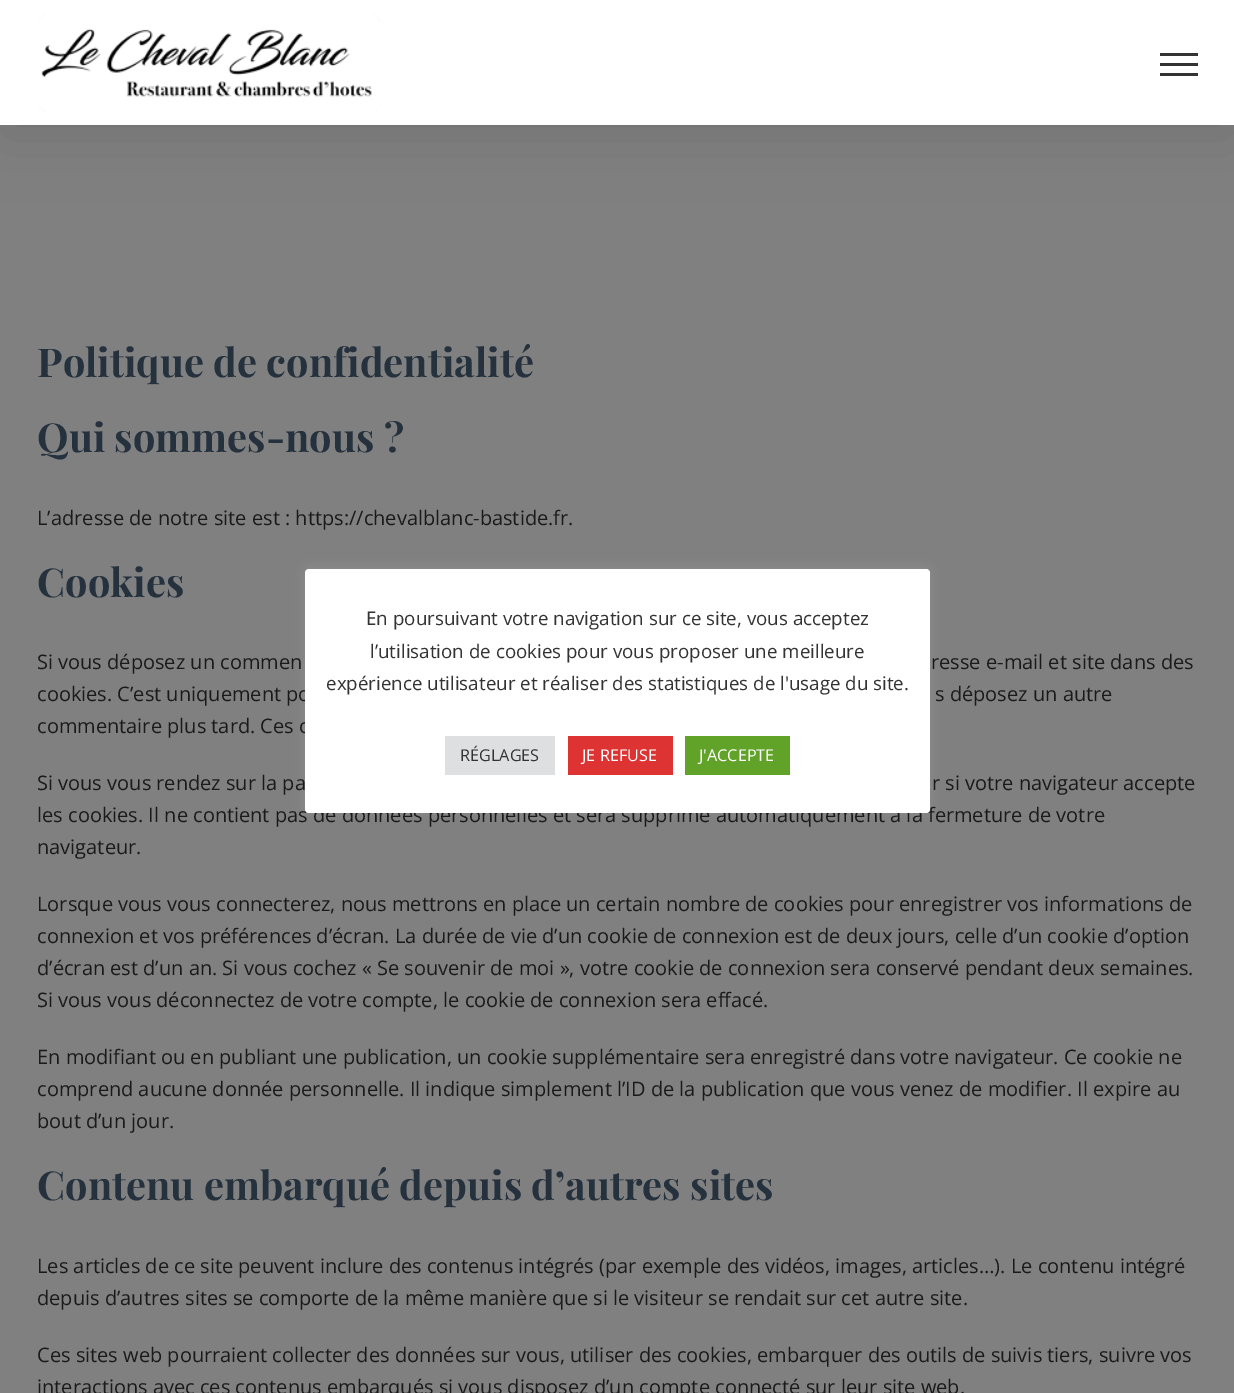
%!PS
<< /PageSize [1234 1393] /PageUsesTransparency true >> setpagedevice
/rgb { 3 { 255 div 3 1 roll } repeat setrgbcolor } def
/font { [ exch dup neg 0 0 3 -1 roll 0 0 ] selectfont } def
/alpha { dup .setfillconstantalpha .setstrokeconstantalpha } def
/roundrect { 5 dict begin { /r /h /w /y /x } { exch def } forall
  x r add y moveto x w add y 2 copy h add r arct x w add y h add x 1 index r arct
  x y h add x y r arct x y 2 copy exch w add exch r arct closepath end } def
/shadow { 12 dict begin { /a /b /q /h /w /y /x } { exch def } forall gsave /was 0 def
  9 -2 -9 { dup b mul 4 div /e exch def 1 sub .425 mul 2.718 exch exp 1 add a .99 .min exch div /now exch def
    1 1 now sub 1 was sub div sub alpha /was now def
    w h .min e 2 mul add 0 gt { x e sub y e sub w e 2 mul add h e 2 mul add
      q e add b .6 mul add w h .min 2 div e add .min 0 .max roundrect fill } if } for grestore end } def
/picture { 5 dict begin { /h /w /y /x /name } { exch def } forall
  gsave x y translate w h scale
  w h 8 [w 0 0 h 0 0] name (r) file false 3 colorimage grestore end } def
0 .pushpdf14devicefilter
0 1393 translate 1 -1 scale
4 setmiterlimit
128 128 128 rgb
0 0 1234 1393 rectfill
0 0 0 rgb
3 15 1230 120 0 31 0.14 shadow
255 255 255 rgb
0 0 1234 125 rectfill
(img/1.rgb) 38 14 342 98 picture
[
  [1160 53 38 3 51 51 51]
  [1160 63 38 3 51 51 51]
  [1160 73 38 3 51 51 51]
] { aload pop rgb rectfill } forall
172 171 171 rgb
305 568 625 243 4 6 0.3 shadow
/PlayfairDisplay-Bold 39.8 font
37 50 62 rgb
37 377 moveto (Politique de confidentialité) show
37 452 moveto (Qui sommes-nous ?) show
/OpenSans-Regular 20 font
26 26 26 rgb
37 525 moveto (L’adresse de notre site est : https://chevalblanc-bastide.fr.) show
/PlayfairDisplay-Bold 39.8 font
37 50 62 rgb
37 597 moveto (Cookies) show
/OpenSans-Regular 20 font
26 26 26 rgb
[
  [(Si vous déposez un commen) 37 669]
  [(resse e-mail et site dans des) 931 669]
  [(cookies. C’est uniquement po) 37 701]
  [(s déposez un autre) 935 701]
  [(commentaire plus tard. Ces c) 37 733]
  [(Si vous vous rendez sur la pa) 37 790]
  [(r si votre navigateur accepte) 932 790]
  [(les cookies. Il ne contient pas de données personnelles et sera supprimé automatiquement à la fermeture de votre) 37 822]
  [(navigateur.) 37 854]
  [(Lorsque vous vous connecterez, nous mettrons en place un certain nombre de cookies pour enregistrer vos informations de) 37 911]
  [(connexion et vos préférences d’écran. La durée de vie d’un cookie de connexion est de deux jours, celle d’un cookie d’option) 37 943]
  [(d’écran est d’un an. Si vous cochez « Se souvenir de moi », votre cookie de connexion sera conservé pendant deux semaines.) 37 975]
  [(Si vous vous déconnectez de votre compte, le cookie de connexion sera effacé.) 37 1007]
  [(En modifiant ou en publiant une publication, un cookie supplémentaire sera enregistré dans votre navigateur. Ce cookie ne) 37 1064]
  [(comprend aucune donnée personnelle. Il indique simplement l’ID de la publication que vous venez de modifier. Il expire au) 37 1096]
  [(bout d’un jour.) 37 1128]
] { aload pop moveto show } forall
/PlayfairDisplay-Bold 39.8 font
37 50 62 rgb
37 1200 moveto (Contenu embarqué depuis d’autres sites) show
/OpenSans-Regular 20 font
26 26 26 rgb
[
  [(Les articles de ce site peuvent inclure des contenus intégrés \(par exemple des vidéos, images, articles…\). Le contenu intégré) 37 1273]
  [(depuis d’autres sites se comporte de la même manière que si le visiteur se rendait sur cet autre site.) 37 1305]
  [(Ces sites web pourraient collecter des données sur vous, utiliser des cookies, embarquer des outils de suivis tiers, suivre vos) 37 1362]
  [(interactions avec ces contenus embarqués si vous disposez d’un compte connecté sur leur site web.) 37 1394]
] { aload pop moveto show } forall
255 255 255 rgb
305 569 625 244 4 roundrect fill
/OpenSans-Regular 18.75 font
51 51 51 rgb
[
  [(En poursuivant votre navigation sur ce site, vous acceptez) 366 625]
  [(l’utilisation de cookies pour vous proposer une meilleure) 370 658]
  [(expérience utilisateur et réaliser des statistiques de l'usage du site.) 326 690]
] { aload pop moveto show } forall
222 223 224 rgb
445 736 110 39 rectfill
/OpenSans-Regular 16.25 font
51 51 51 rgb
460 761 moveto (RÉGLAGES) show
221 51 51 rgb
568 736 105 39 rectfill
255 255 255 rgb
582 761 moveto (JE REFUSE) show
97 162 41 rgb
685 736 105 39 rectfill
255 255 255 rgb
699 761 moveto (J'ACCEPTE) show
.poppdf14devicefilter showpage
